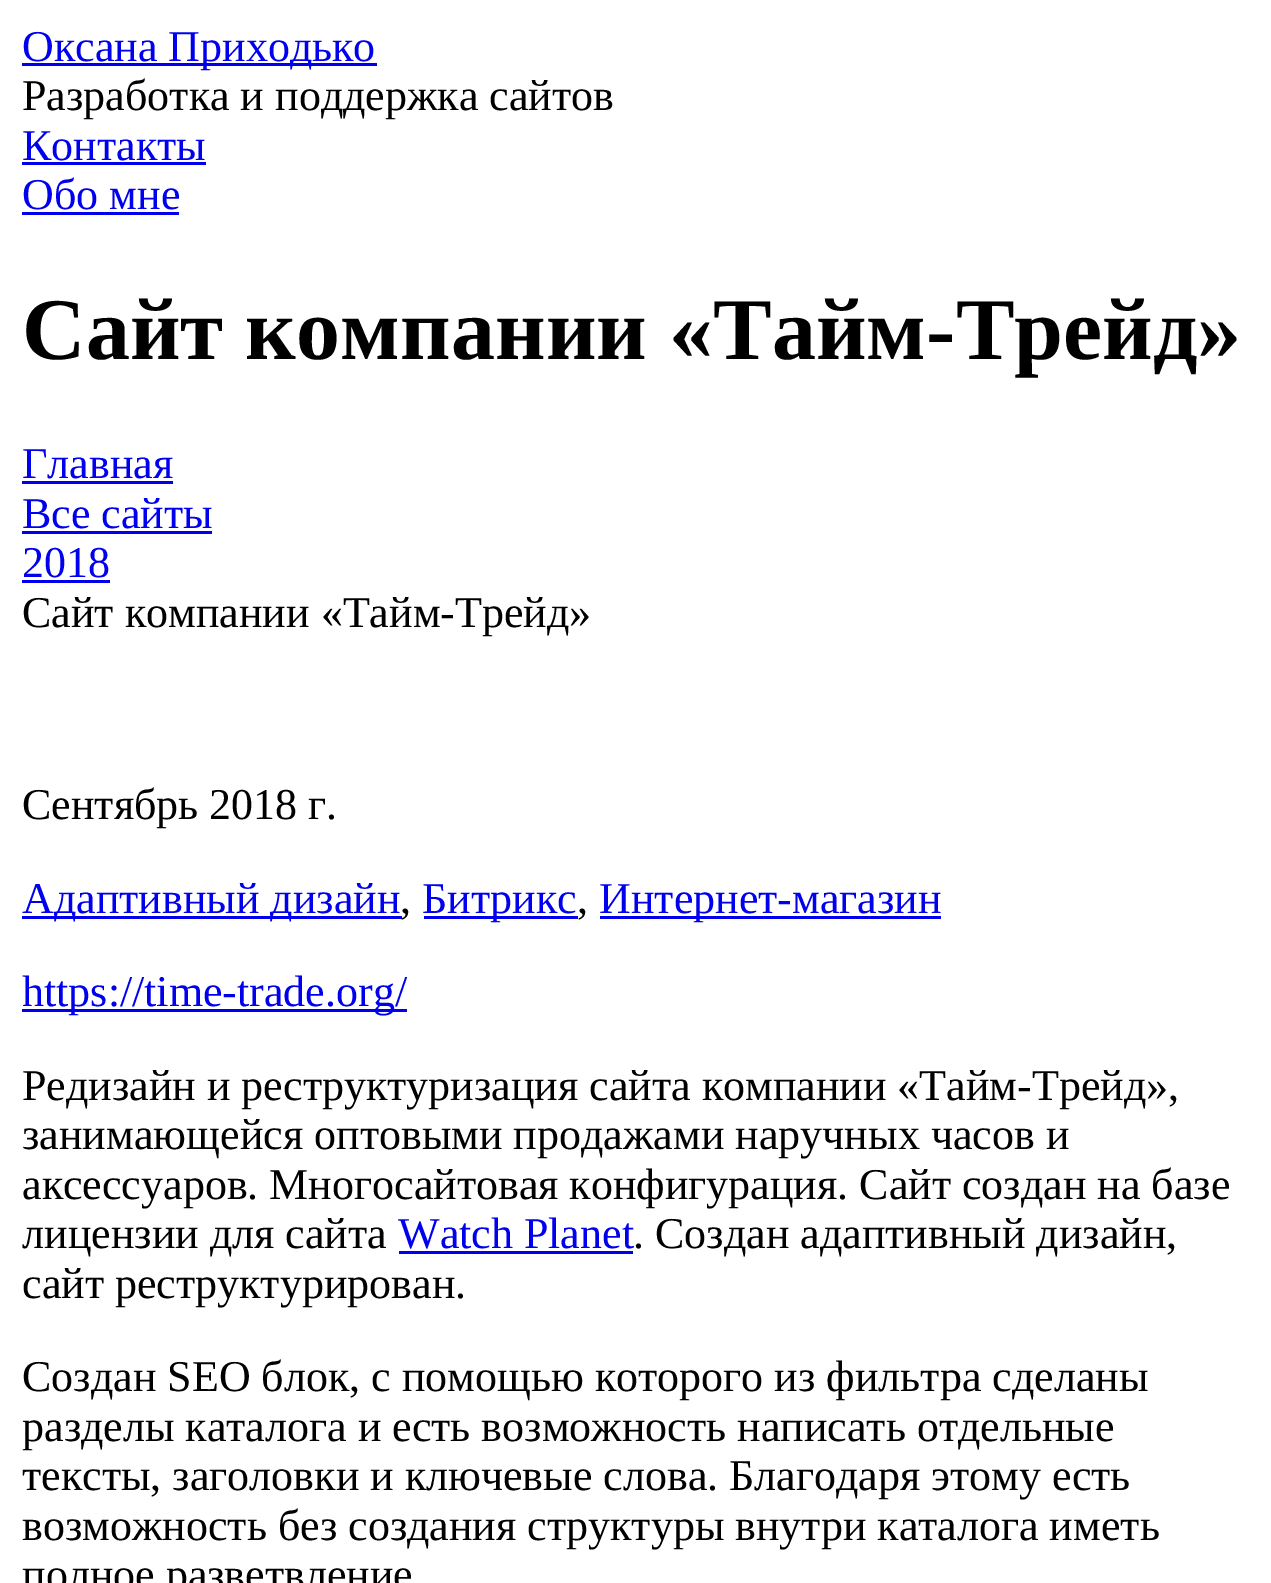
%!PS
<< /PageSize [1271 1583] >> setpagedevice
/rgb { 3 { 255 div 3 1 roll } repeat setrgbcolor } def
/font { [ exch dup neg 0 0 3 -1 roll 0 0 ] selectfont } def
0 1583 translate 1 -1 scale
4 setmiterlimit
255 255 255 rgb
0 0 1271 1583 rectfill
[
  [22 63 355 3 0 0 238]
  [22 162 184 3 0 0 238]
  [22 212 157 3 0 0 238]
  [22 481 151 3 0 0 238]
  [22 531 190 3 0 0 238]
  [22 580 88 3 0 0 238]
  [22 916 380 3 0 0 238]
  [424 916 154 3 0 0 238]
  [600 916 341 3 0 0 238]
  [22 1009 385 3 0 0 238]
  [399 1251 234 3 0 0 238]
] { aload pop rgb rectfill } forall
/LiberationSerif-Regular 44 font
22 61 moveto (Оксана Приходько) show
0 0 0 rgb
22 110 moveto (Разработка и поддержка сайтов) show
0 0 238 rgb
22 160 moveto (Контакты) show
22 209 moveto (Обо мне) show
/LiberationSerif-Bold 88 font
0 0 0 rgb
22 359 moveto (Сайт компании «Тайм-Трейд») show
/LiberationSerif-Regular 44 font
0 0 238 rgb
[
  [(Главная) 22 478]
  [(Все сайты) 22 528]
  [(2018) 22 577]
] { aload pop moveto show } forall
0 0 0 rgb
22 627 moveto (Сайт компании «Тайм-Трейд») show
22 819 moveto (Сентябрь 2018 г.) show
0 0 238 rgb
22 913 moveto (Адаптивный дизайн) show
0 0 0 rgb
400 913 moveto (,) show
0 0 238 rgb
422 913 moveto (Битрикс) show
0 0 0 rgb
577 913 moveto (,) show
0 0 238 rgb
599 913 moveto (Интернет-магазин) show
22 1006 moveto (https://time-trade.org/) show
0 0 0 rgb
[
  [(Редизайн и реструктуризация сайта компании «Тайм-Трейд»,) 22 1100]
  [(занимающейся оптовыми продажами наручных часов и) 22 1149]
  [(аксессуаров. Многосайтовая конфигурация. Сайт создан на базе) 22 1199]
  [(лицензии для сайта) 22 1248]
] { aload pop moveto show } forall
0 0 238 rgb
398 1248 moveto (Watch Planet) show
0 0 0 rgb
[
  [(. Создан адаптивный дизайн,) 633 1248]
  [(сайт реструктурирован.) 22 1298]
  [(Создан SEO блок, с помощью которого из фильтра сделаны) 22 1391]
  [(разделы каталога и есть возможность написать отдельные) 22 1441]
  [(тексты, заголовки и ключевые слова. Благодаря этому есть) 22 1490]
  [(возможность без создания структуры внутри каталога иметь) 22 1540]
  [(полное разветвление) 22 1589]
] { aload pop moveto show } forall
showpage
